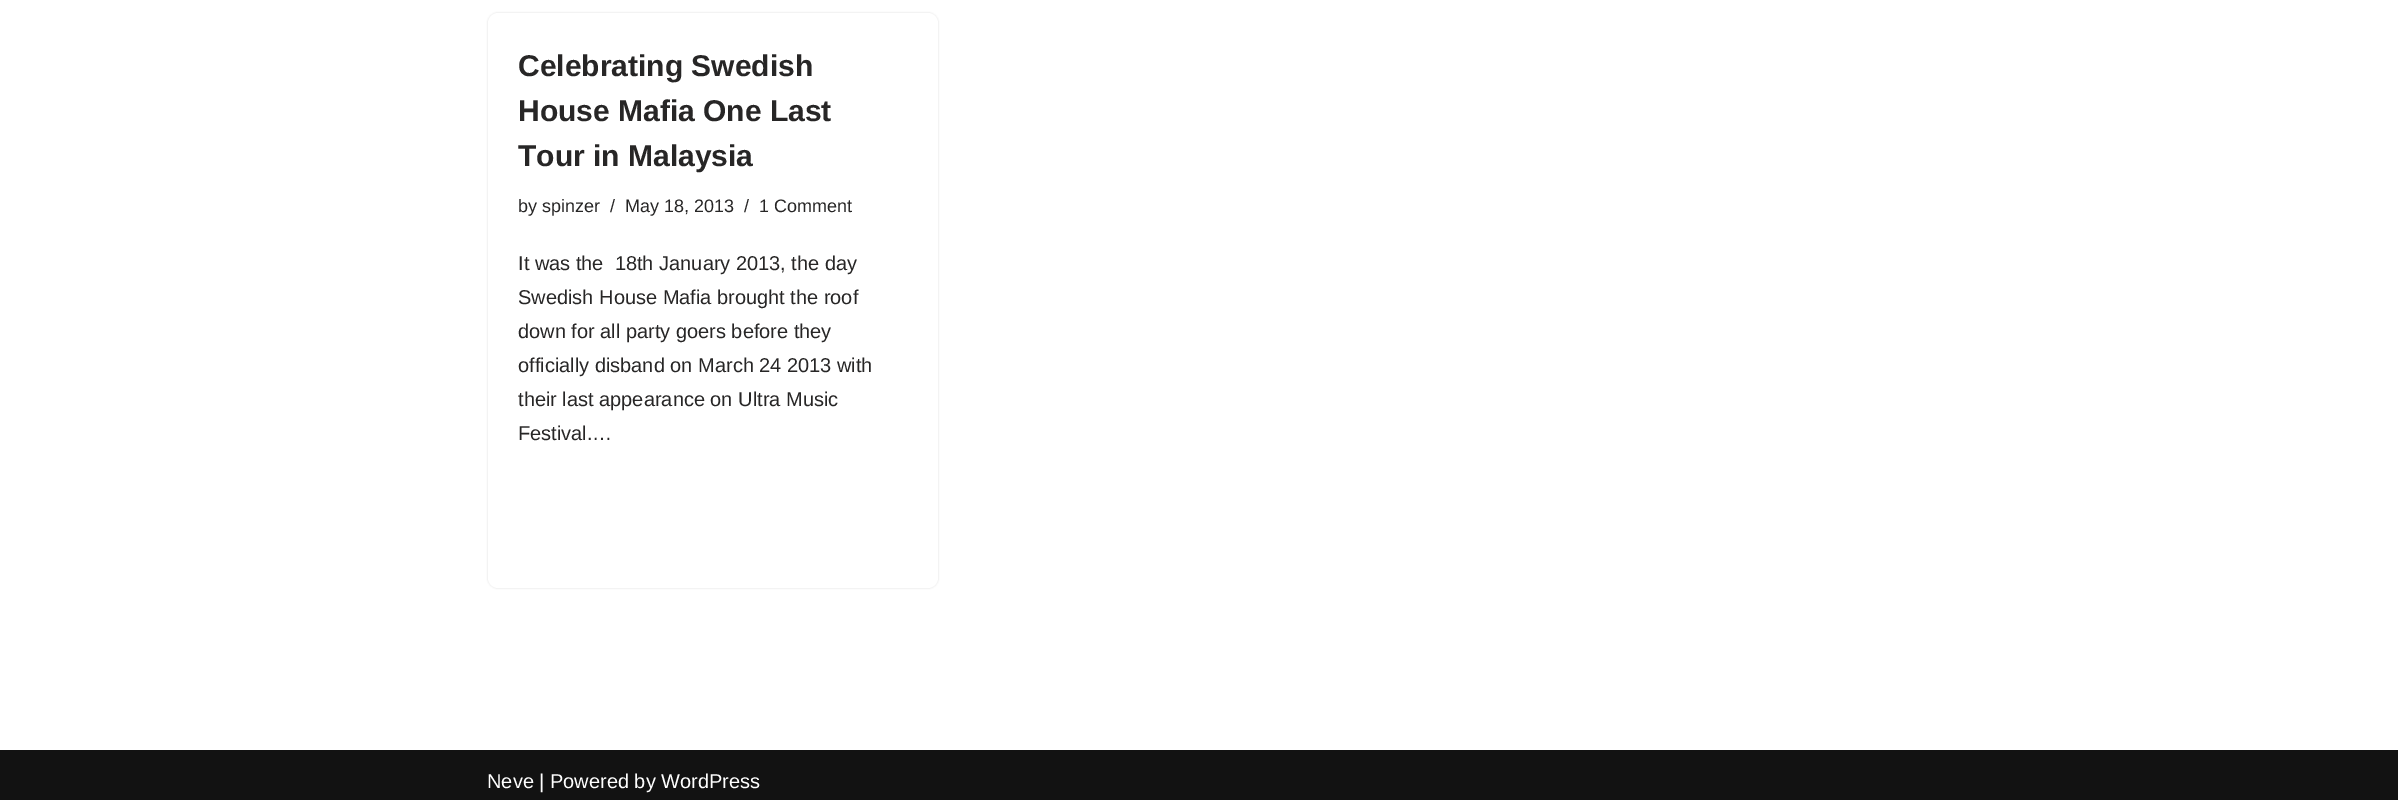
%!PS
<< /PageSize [2398 800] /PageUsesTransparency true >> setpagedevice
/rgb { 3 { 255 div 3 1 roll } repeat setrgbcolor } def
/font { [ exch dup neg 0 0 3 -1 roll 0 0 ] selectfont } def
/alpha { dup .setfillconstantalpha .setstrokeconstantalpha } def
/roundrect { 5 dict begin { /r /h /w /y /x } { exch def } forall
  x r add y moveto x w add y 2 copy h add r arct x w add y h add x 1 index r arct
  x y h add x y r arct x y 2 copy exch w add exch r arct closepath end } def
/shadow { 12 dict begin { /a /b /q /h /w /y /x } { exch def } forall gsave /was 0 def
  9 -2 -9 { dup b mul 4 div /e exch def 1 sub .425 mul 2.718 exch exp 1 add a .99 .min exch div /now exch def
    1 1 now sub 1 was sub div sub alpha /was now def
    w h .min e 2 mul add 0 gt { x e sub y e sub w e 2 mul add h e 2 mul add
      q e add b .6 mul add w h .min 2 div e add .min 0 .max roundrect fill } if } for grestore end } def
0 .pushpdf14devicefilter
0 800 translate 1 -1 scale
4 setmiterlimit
255 255 255 rgb
0 0 2398 800 rectfill
0 0 0 rgb
488 13 450 575 10 1 0.15 shadow
255 255 255 rgb
488 13 450 575 10 roundrect fill
18 18 18 rgb
0 750 2398 50 rectfill
/LiberationSans-Bold 30 font
39 38 38 rgb
[
  [(Celebrating Swedish) 518 76]
  [(House Mafia One Last) 518 121]
  [(Tour in Malaysia) 518 166]
] { aload pop moveto show } forall
/LiberationSans-Regular 18 font
[
  [(by spinzer) 518 212]
  [(/) 610 212]
  [(May 18, 2013) 625 212]
  [(/) 744 212]
  [(1 Comment) 759 212]
] { aload pop moveto show } forall
/LiberationSans-Regular 20 font
[
  [(It was the  18th January 2013, the day) 518 270]
  [(Swedish House Mafia brought the roof) 518 304]
  [(down for all party goers before they) 518 338]
  [(officially disband on March 24 2013 with) 518 372]
  [(their last appearance on Ultra Music) 518 406]
  [(Festival.…) 518 440]
] { aload pop moveto show } forall
255 255 255 rgb
487 788 moveto (Neve | Powered by WordPress) show
.poppdf14devicefilter showpage
